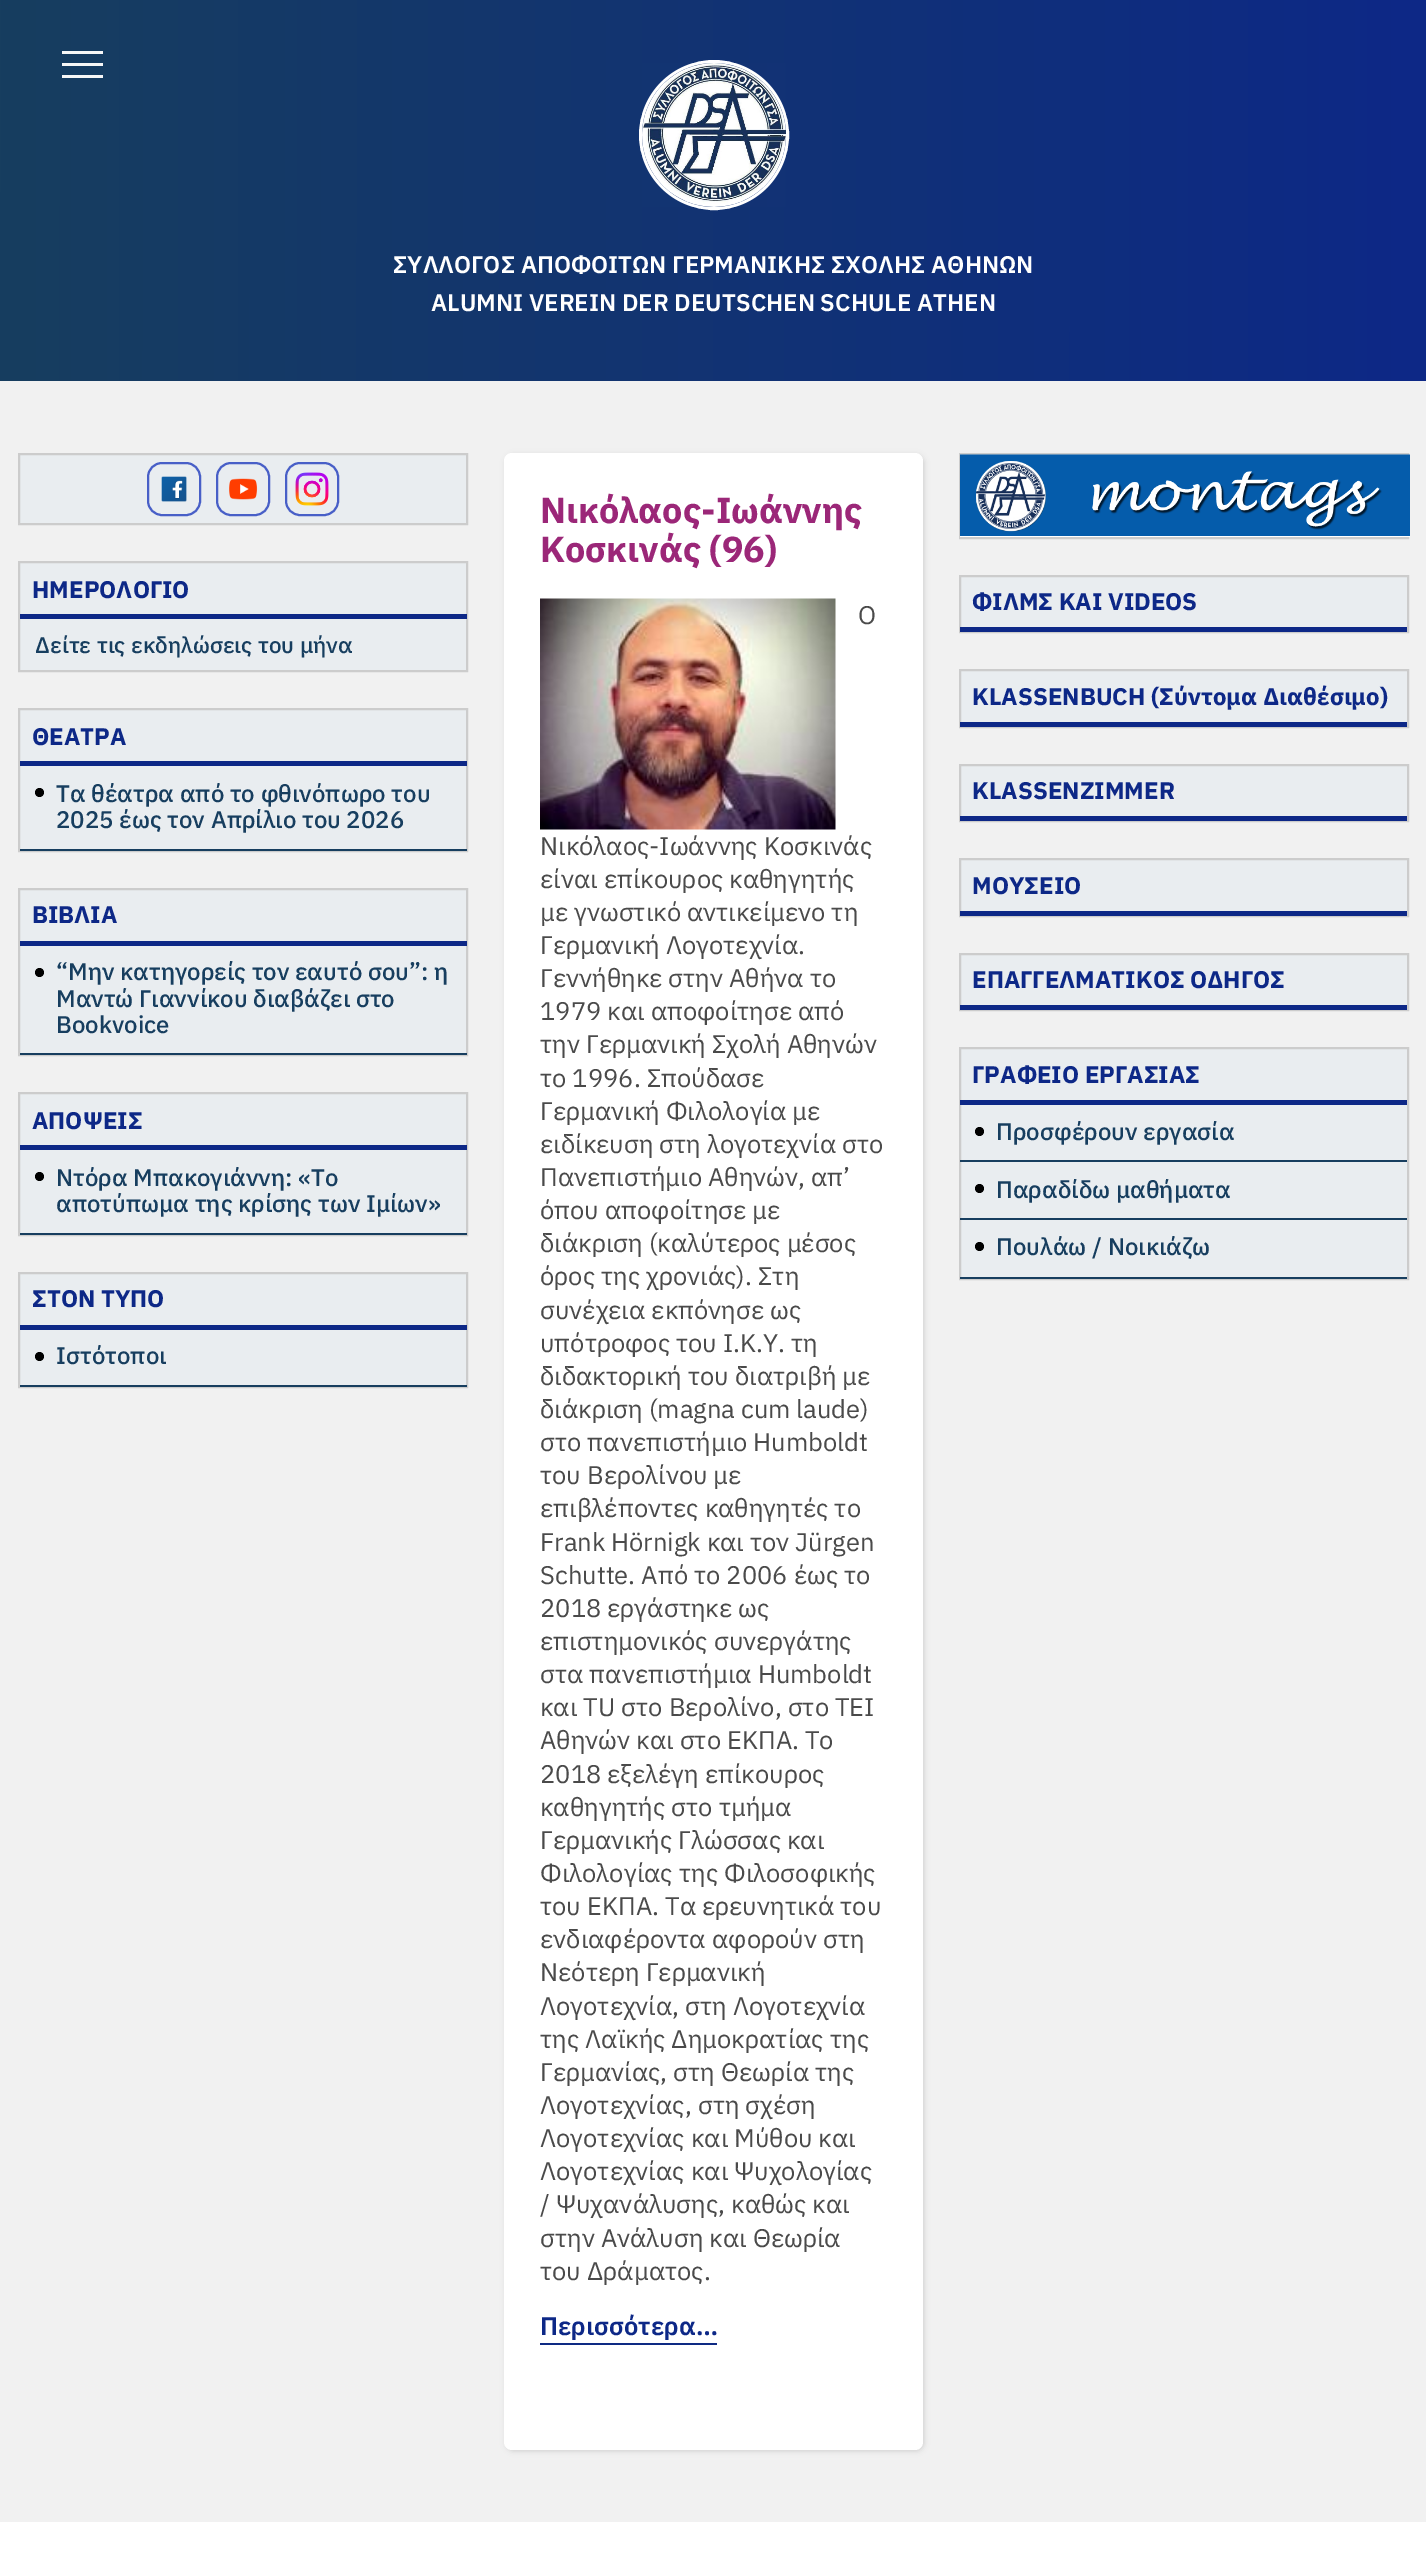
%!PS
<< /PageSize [1426 2565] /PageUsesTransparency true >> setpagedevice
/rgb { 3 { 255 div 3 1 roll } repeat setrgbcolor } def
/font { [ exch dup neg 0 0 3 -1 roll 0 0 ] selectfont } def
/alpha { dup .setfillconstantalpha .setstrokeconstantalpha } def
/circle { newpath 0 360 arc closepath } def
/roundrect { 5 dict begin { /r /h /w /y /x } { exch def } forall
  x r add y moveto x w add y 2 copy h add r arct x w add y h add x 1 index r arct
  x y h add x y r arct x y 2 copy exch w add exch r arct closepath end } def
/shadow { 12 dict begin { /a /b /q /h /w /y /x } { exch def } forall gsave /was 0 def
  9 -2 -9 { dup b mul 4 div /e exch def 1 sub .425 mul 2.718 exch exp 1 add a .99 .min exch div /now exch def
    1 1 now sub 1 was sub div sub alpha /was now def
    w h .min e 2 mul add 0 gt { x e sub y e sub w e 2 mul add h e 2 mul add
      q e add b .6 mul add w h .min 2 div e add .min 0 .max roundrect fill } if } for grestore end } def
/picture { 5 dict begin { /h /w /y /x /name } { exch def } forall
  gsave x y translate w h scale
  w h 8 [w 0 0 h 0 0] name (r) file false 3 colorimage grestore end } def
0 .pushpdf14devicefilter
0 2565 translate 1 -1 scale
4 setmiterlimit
241 241 241 rgb
0 0 1426 2565 rectfill
gsave 0 0 moveto 1426 0 lineto 1426 381 lineto 0 381 lineto closepath clip newpath
<< /ShadingType 2 /ColorSpace /DeviceRGB /Coords [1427 191 0 190] /Extend [true true] /Function << /FunctionType 2 /Domain [0 1] /C0 [0.051 0.157 0.529] /C1 [0.09 0.243 0.373] /N 1 >> >> shfill grestore
247 247 247 rgb
62 78 moveto 62 75 lineto 103 75 lineto 103 78 lineto closepath 62 66 moveto 62 63 lineto 103 63 lineto 103 66 lineto closepath 62 54 moveto 62 51 lineto 103 51 lineto 103 54 lineto closepath fill
255 255 255 rgb
3 setlinewidth
714 135 73.5 circle stroke
(img/1.rgb) 642 63 144 144 picture
233 237 240 rgb
19 454 moveto 467 454 lineto 467 524 lineto 19 524 lineto closepath gsave fill grestore
204 204 204 rgb
2 setlinewidth
stroke
72 95 199 rgb
148 463 52 52 14 roundrect stroke
(img/2.rgb) 161 476 26 26 picture
217 463 52 52 14 roundrect stroke
(img/3.rgb) 229 478 29 22 picture
286 463 52 52 14 roundrect stroke
(img/4.rgb) 295 472 34 34 picture
233 237 240 rgb
19 562 moveto 467 562 lineto 467 671 lineto 19 671 lineto closepath gsave fill grestore
204 204 204 rgb
stroke
13 40 135 rgb
20 614 447 5 rectfill
233 237 240 rgb
20 710 446 139 rectfill
204 204 204 rgb
19 709 448 142 rectstroke
13 40 135 rgb
20 761 447 5 rectfill
23 62 95 rgb
20 849 447 2 rectfill
0 0 0 rgb
39.5 792.5 4.5 circle fill
233 237 240 rgb
20 890 446 163 rectfill
204 204 204 rgb
19 889 448 166 rectstroke
13 40 135 rgb
20 941 447 5 rectfill
23 62 95 rgb
20 1053 447 2 rectfill
0 0 0 rgb
39.5 972.5 4.5 circle fill
233 237 240 rgb
20 1094 446 139 rectfill
204 204 204 rgb
19 1093 448 142 rectstroke
13 40 135 rgb
20 1145 447 5 rectfill
23 62 95 rgb
20 1233 447 2 rectfill
0 0 0 rgb
39.5 1176.5 4.5 circle fill
233 237 240 rgb
20 1274 446 111 rectfill
204 204 204 rgb
19 1273 448 114 rectstroke
13 40 135 rgb
20 1325 447 5 rectfill
23 62 95 rgb
20 1385 447 2 rectfill
0 0 0 rgb
39.5 1356.5 4.5 circle fill
204 204 204 rgb
506 455 418 1996 8 3 1 shadow
255 255 255 rgb
504 453 419 1997 8 roundrect fill
(img/5.rgb) 540 598 296 232 picture
14 42 131 rgb
540 2343 177 2 rectfill
204 204 204 rgb
960 454 448 84 rectstroke
(img/6.rgb) 960 454 450 83 picture
233 237 240 rgb
961 577 446 50 rectfill
204 204 204 rgb
960 576 448 56 rectstroke
13 40 135 rgb
960 627 447 5 rectfill
233 237 240 rgb
961 671 446 51 rectfill
204 204 204 rgb
960 670 448 57 rectstroke
13 40 135 rgb
960 722 447 5 rectfill
233 237 240 rgb
961 766 446 50 rectfill
204 204 204 rgb
960 765 448 56 rectstroke
13 40 135 rgb
960 816 447 5 rectfill
233 237 240 rgb
961 860 446 51 rectfill
204 204 204 rgb
960 859 448 57 rectstroke
13 40 135 rgb
960 911 447 5 rectfill
233 237 240 rgb
961 955 446 50 rectfill
204 204 204 rgb
960 954 448 56 rectstroke
13 40 135 rgb
960 1005 447 5 rectfill
233 237 240 rgb
961 1049 446 228 rectfill
204 204 204 rgb
960 1048 448 231 rectstroke
13 40 135 rgb
960 1100 447 5 rectfill
23 62 95 rgb
960 1160 447 2 rectfill
0 0 0 rgb
979.5 1131.5 4.5 circle fill
23 62 95 rgb
960 1218 447 2 rectfill
0 0 0 rgb
979.5 1188.5 4.5 circle fill
23 62 95 rgb
960 1277 447 2 rectfill
0 0 0 rgb
979.5 1246.5 4.5 circle fill
255 255 255 rgb
0 2522 1426 43 rectfill
/IBMPlexSans-SemiBold 24 font
393 273 moveto (ΣΥΛΛΟΓΟΣ ΑΠΟΦΟΙΤΩΝ ΓΕΡΜΑΝΙΚΗΣ ΣΧΟΛΗΣ ΑΘΗΝΩΝ) show
431 311 moveto (ALUMNI VEREIN DER DEUTSCHEN SCHULE ATHEN) show
/IBMPlexSans-Bold 24 font
13 40 135 rgb
32 598 moveto (ΗΜΕΡΟΛΟΓΙΟ) show
/IBMPlexSans-Medium 22.5 font
23 62 95 rgb
35 653 moveto (Δείτε τις εκδηλώσεις του μήνα) show
/IBMPlexSans-Bold 24 font
13 40 135 rgb
32 745 moveto (ΘΕΑΤΡΑ) show
/IBMPlexSans-Medium 24 font
23 62 95 rgb
56 802 moveto (Τα θέατρα από το φθινόπωρο του) show
56 828 moveto (2025 έως τον Απρίλιο του 2026) show
/IBMPlexSans-Bold 24 font
13 40 135 rgb
32 923 moveto (ΒΙΒΛΙΑ) show
/IBMPlexSans-Medium 24 font
23 62 95 rgb
[
  [(“Μην κατηγορείς τον εαυτό σου”: η) 56 980]
  [(Μαντώ Γιαννίκου διαβάζει στο) 56 1007]
  [(Bookvoice) 56 1033]
] { aload pop moveto show } forall
/IBMPlexSans-Bold 24 font
13 40 135 rgb
32 1129 moveto (ΑΠΟΨΕΙΣ) show
/IBMPlexSans-Medium 24 font
23 62 95 rgb
56 1186 moveto (Ντόρα Μπακογιάννη: «Το) show
56 1212 moveto (αποτύπωμα της κρίσης των Ιμίων») show
/IBMPlexSans-Bold 24 font
13 40 135 rgb
32 1307 moveto (ΣΤΟΝ ΤΥΠΟ) show
/IBMPlexSans-Medium 24 font
23 62 95 rgb
56 1364 moveto (Ιστότοποι) show
/IBMPlexSans-Bold 36 font
155 39 120 rgb
540 523 moveto (Νικόλαος-Ιωάννης) show
540 562 moveto (Κοσκινάς \(96\)) show
/IBMPlexSans-Regular 25.5 font
74 74 74 rgb
[
  [(Ο) 858 624]
  [(Νικόλαος-Ιωάννης Κοσκινάς) 540 855]
  [(είναι επίκουρος καθηγητής) 540 888]
  [(με γνωστικό αντικείμενο τη) 540 921]
  [(Γερμανική Λογοτεχνία.) 540 954]
  [(Γεννήθηκε στην Αθήνα το) 540 987]
  [(1979 και αποφοίτησε από) 540 1020]
  [(την Γερμανική Σχολή Αθηνών) 540 1053]
  [(το 1996. Σπούδασε) 540 1087]
  [(Γερμανική Φιλολογία με) 540 1120]
  [(ειδίκευση στη λογοτεχνία στο) 540 1153]
  [(Πανεπιστήμιο Αθηνών, απ’) 540 1186]
  [(όπου αποφοίτησε με) 540 1219]
  [(διάκριση \(καλύτερος μέσος) 540 1252]
  [(όρος της χρονιάς\). Στη) 540 1285]
  [(συνέχεια εκπόνησε ως) 540 1319]
  [(υπότροφος του Ι.Κ.Υ. τη) 540 1352]
  [(διδακτορική του διατριβή με) 540 1385]
  [(διάκριση \(magna cum laude\)) 540 1418]
  [(στο πανεπιστήμιο Humboldt) 540 1451]
  [(του Βερολίνου με) 540 1484]
  [(επιβλέποντες καθηγητές το) 540 1517]
  [(Frank Hörnigk και τον Jürgen) 540 1551]
  [(Schutte. Από το 2006 έως το) 540 1584]
  [(2018 εργάστηκε ως) 540 1617]
  [(επιστημονικός συνεργάτης) 540 1650]
  [(στα πανεπιστήμια Humboldt) 540 1683]
  [(και TU στο Βερολίνο, στο ΤΕΙ) 540 1716]
  [(Αθηνών και στο ΕΚΠΑ. Το) 540 1749]
  [(2018 εξελέγη επίκουρος) 540 1783]
  [(καθηγητής στο τμήμα) 540 1816]
  [(Γερμανικής Γλώσσας και) 540 1849]
  [(Φιλολογίας της Φιλοσοφικής) 540 1882]
  [(του ΕΚΠΑ. Τα ερευνητικά του) 540 1915]
  [(ενδιαφέροντα αφορούν στη) 540 1948]
  [(Νεότερη Γερμανική) 540 1981]
  [(Λογοτεχνία, στη Λογοτεχνία) 540 2015]
  [(της Λαϊκής Δημοκρατίας της) 540 2048]
  [(Γερμανίας, στη Θεωρία της) 540 2081]
  [(Λογοτεχνίας, στη σχέση) 540 2114]
  [(Λογοτεχνίας και Μύθου και) 540 2147]
  [(Λογοτεχνίας και Ψυχολογίας) 540 2180]
  [(/ Ψυχανάλυσης, καθώς και) 540 2213]
  [(στην Ανάλυση και Θεωρία) 540 2247]
  [(του Δράματος.) 540 2280]
] { aload pop moveto show } forall
/IBMPlexSans-SemiBold 25.5 font
13 40 135 rgb
540 2335 moveto (Περισσότερα…) show
/IBMPlexSans-Bold 24 font
[
  [(ΦΙΛΜΣ ΚΑΙ VIDEOS) 972 610]
  [(KLASSENBUCH \(Σύντομα Διαθέσιμο\)) 972 705]
  [(KLASSENZIMMER) 972 799]
  [(ΜΟΥΣΕΙΟ) 972 894]
  [(ΕΠΑΓΓΕΛΜΑΤΙΚΟΣ ΟΔΗΓΟΣ) 972 988]
  [(ΓΡΑΦΕΙΟ ΕΡΓΑΣΙΑΣ) 972 1083]
] { aload pop moveto show } forall
/IBMPlexSans-Medium 24 font
23 62 95 rgb
[
  [(Προσφέρουν εργασία) 996 1140]
  [(Παραδίδω μαθήματα) 996 1198]
  [(Πουλάω / Νοικιάζω) 996 1255]
] { aload pop moveto show } forall
.poppdf14devicefilter showpage
